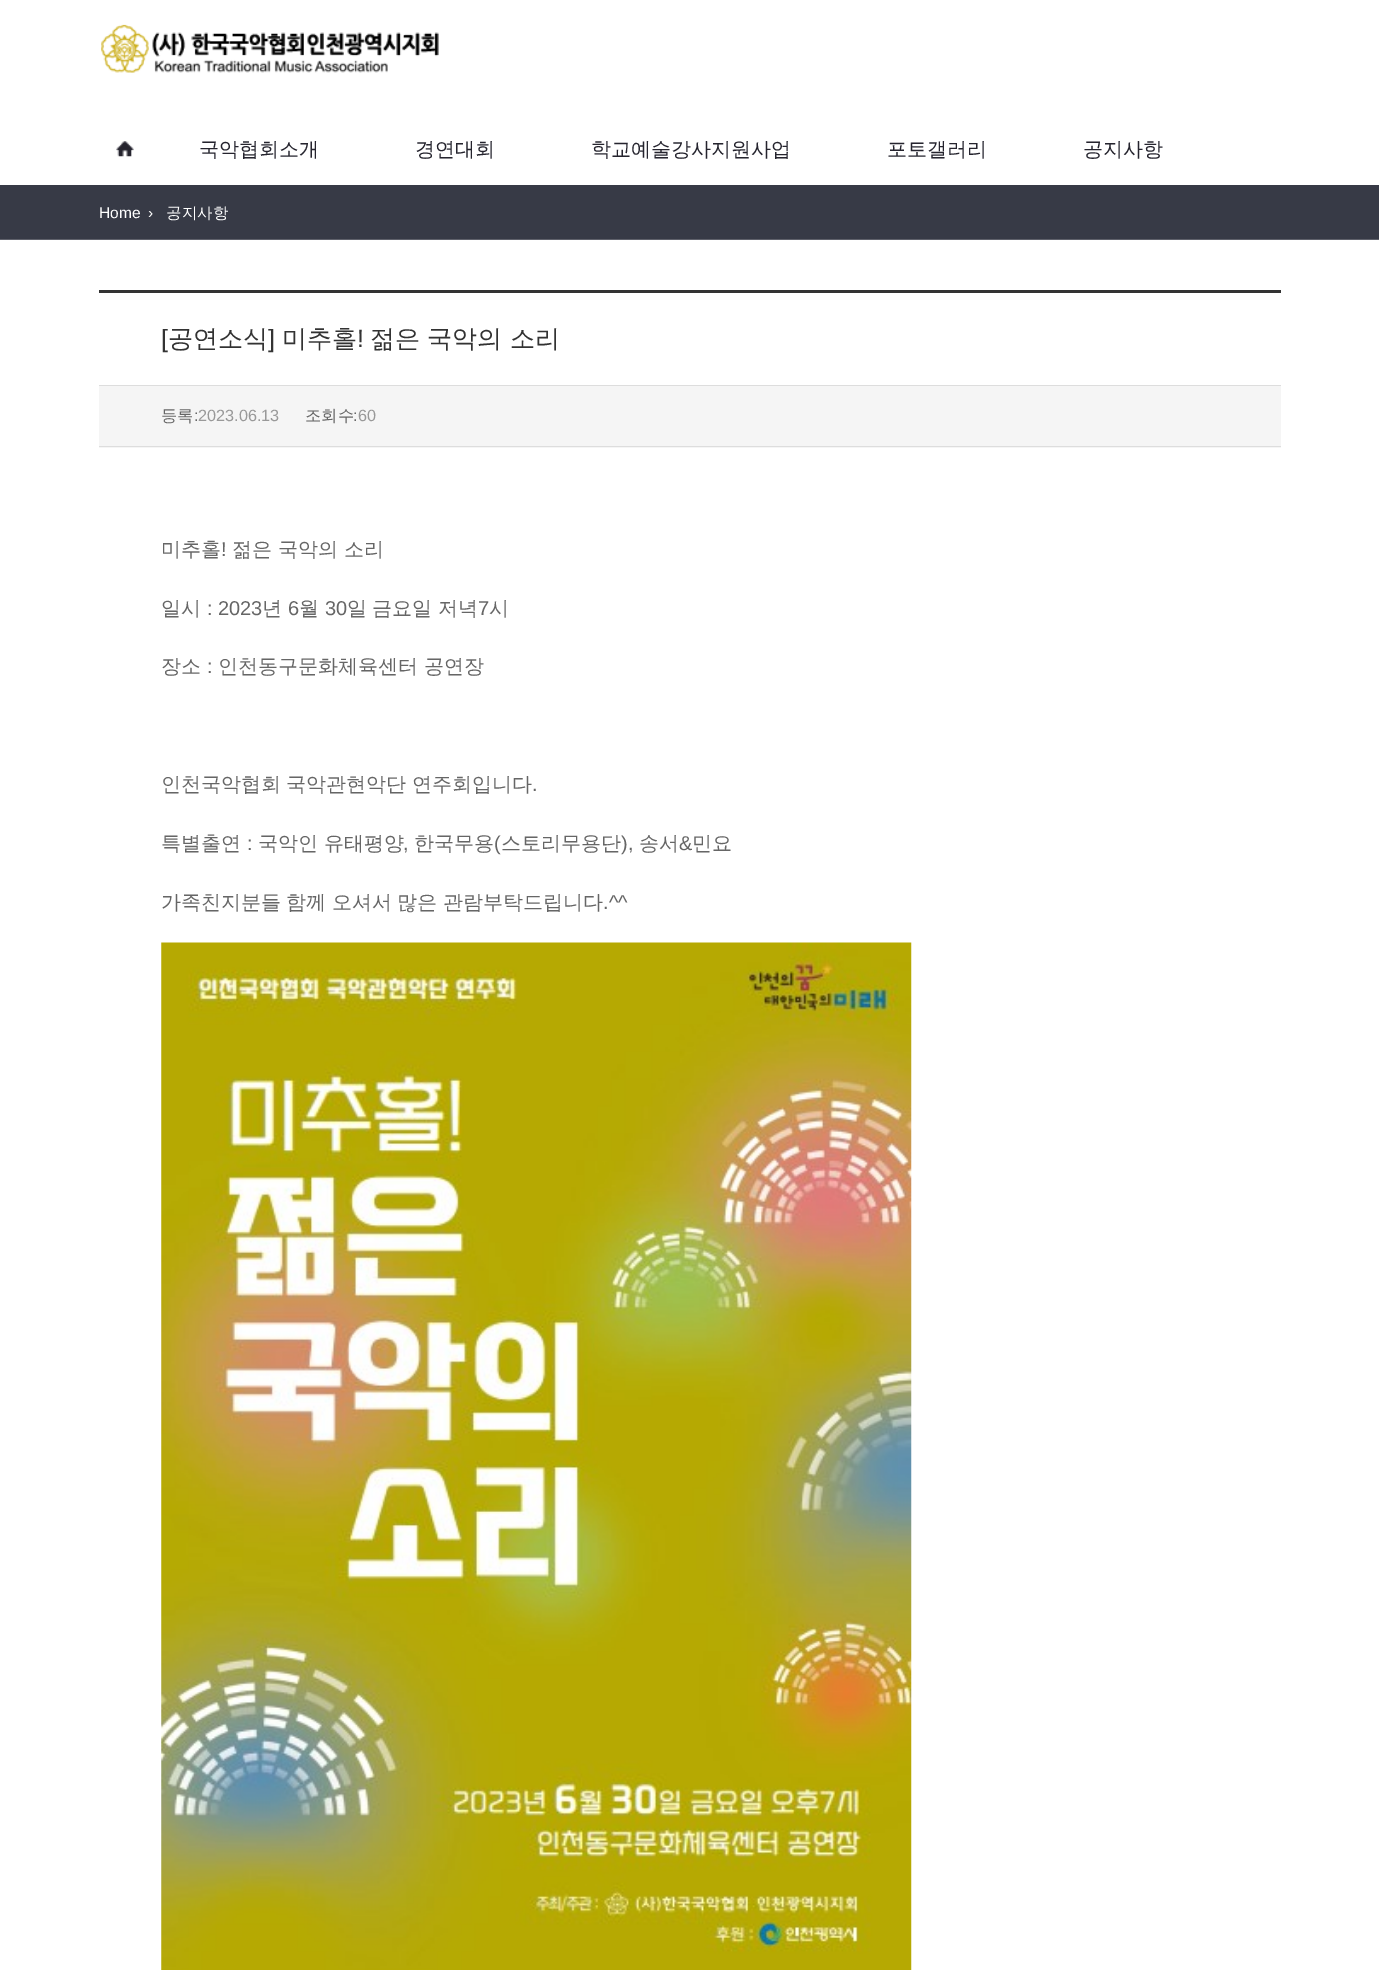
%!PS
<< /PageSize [1379 1970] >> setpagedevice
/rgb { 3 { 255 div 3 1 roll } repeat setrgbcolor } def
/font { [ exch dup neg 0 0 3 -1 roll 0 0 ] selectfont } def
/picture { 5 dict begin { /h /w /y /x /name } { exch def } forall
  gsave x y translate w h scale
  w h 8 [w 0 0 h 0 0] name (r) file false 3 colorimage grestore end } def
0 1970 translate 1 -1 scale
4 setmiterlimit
255 255 255 rgb
0 0 1379 1970 rectfill
(img/1.rgb) 101 24 338 49 picture
(img/2.rgb) 116 141 18 16 picture
[
  [0 185 1379 54 55 58 70]
  [0 239 1379 1 95 97 107]
  [99 290 1182 3 51 51 51]
  [99 386 1182 62 245 245 245]
  [99 385 1182 1 221 221 221]
  [99 446 1182 1 221 221 221]
] { aload pop rgb rectfill } forall
(img/3.rgb) 161 942 751 1028 picture
/WenQuanYiZenHei-Medium 20 font
37 36 46 rgb
[
  [(국악협회소개) 199 156]
  [(경연대회) 415 156]
  [(학교예술강사지원사업) 591 156]
  [(포토갤러리) 887 156]
  [(공지사항) 1083 156]
] { aload pop moveto show } forall
/LiberationSans-Regular 15.5 font
255 255 255 rgb
99 218 moveto (Home) show
148 218 moveto (›) show
/WenQuanYiZenHei-Medium 15.5 font
166 218 moveto (공지사항) show
/LiberationSans-Regular 25 font
51 51 51 rgb
161 347 moveto ([) show
/WenQuanYiZenHei-Medium 25 font
168 347 moveto (공연소식) show
/LiberationSans-Regular 25 font
268 347 moveto (]) show
/WenQuanYiZenHei-Medium 25 font
282 347 moveto (미추홀) show
/LiberationSans-Regular 25 font
357 347 moveto (!) show
/WenQuanYiZenHei-Medium 25 font
370 347 moveto (젊은 국악의 소리) show
/WenQuanYiZenHei-Medium 16.25 font
102 102 102 rgb
161 421 moveto (등록) show
/LiberationSans-Regular 16.25 font
194 421 moveto (:) show
153 153 153 rgb
198 421 moveto (2023.06.13) show
/WenQuanYiZenHei-Medium 16.25 font
102 102 102 rgb
305 421 moveto (조회수) show
/LiberationSans-Regular 16.25 font
353 421 moveto (:) show
153 153 153 rgb
358 421 moveto (60) show
/WenQuanYiZenHei-Medium 20 font
102 102 102 rgb
161 556 moveto (미추홀) show
/LiberationSans-Regular 20 font
221 556 moveto (!) show
/WenQuanYiZenHei-Medium 20 font
232 556 moveto (젊은 국악의 소리) show
161 615 moveto (일시) show
/LiberationSans-Regular 20 font
207 615 moveto (: 2023) show
/WenQuanYiZenHei-Medium 20 font
262 615 moveto (년) show
/LiberationSans-Regular 20 font
288 615 moveto (6) show
/WenQuanYiZenHei-Medium 20 font
299 615 moveto (월) show
/LiberationSans-Regular 20 font
325 615 moveto (30) show
/WenQuanYiZenHei-Medium 20 font
[
  [(일) 347 615]
  [(금요일) 372 615]
  [(저녁) 438 615]
] { aload pop moveto show } forall
/LiberationSans-Regular 20 font
478 615 moveto (7) show
/WenQuanYiZenHei-Medium 20 font
489 615 moveto (시) show
161 673 moveto (장소) show
/LiberationSans-Regular 20 font
207 673 moveto (:) show
/WenQuanYiZenHei-Medium 20 font
218 673 moveto (인천동구문화체육센터 공연장) show
161 791 moveto -0.5 0 32 (인천국악협회 국악관현악단 연주회입니다) widthshow
/LiberationSans-Regular 20 font
532 791 moveto (.) show
/WenQuanYiZenHei-Medium 20 font
161 850 moveto (특별출연) show
/LiberationSans-Regular 20 font
247 850 moveto (:) show
/WenQuanYiZenHei-Medium 20 font
258 850 moveto (국악인 유태평양) show
/LiberationSans-Regular 20 font
403 850 moveto (,) show
/WenQuanYiZenHei-Medium 20 font
414 850 moveto (한국무용) show
/LiberationSans-Regular 20 font
494 850 moveto (\() show
/WenQuanYiZenHei-Medium 20 font
501 850 moveto (스토리무용단) show
/LiberationSans-Regular 20 font
621 850 moveto (\),) show
/WenQuanYiZenHei-Medium 20 font
639 850 moveto (송서) show
/LiberationSans-Regular 20 font
679 850 moveto (&) show
/WenQuanYiZenHei-Medium 20 font
692 850 moveto (민요) show
161 909 moveto -0.5 0 32 (가족친지분들 함께 오셔서 많은 관람부탁드립니다) widthshow
/LiberationSans-Regular 20 font
603 909 moveto (.^^) show
showpage
